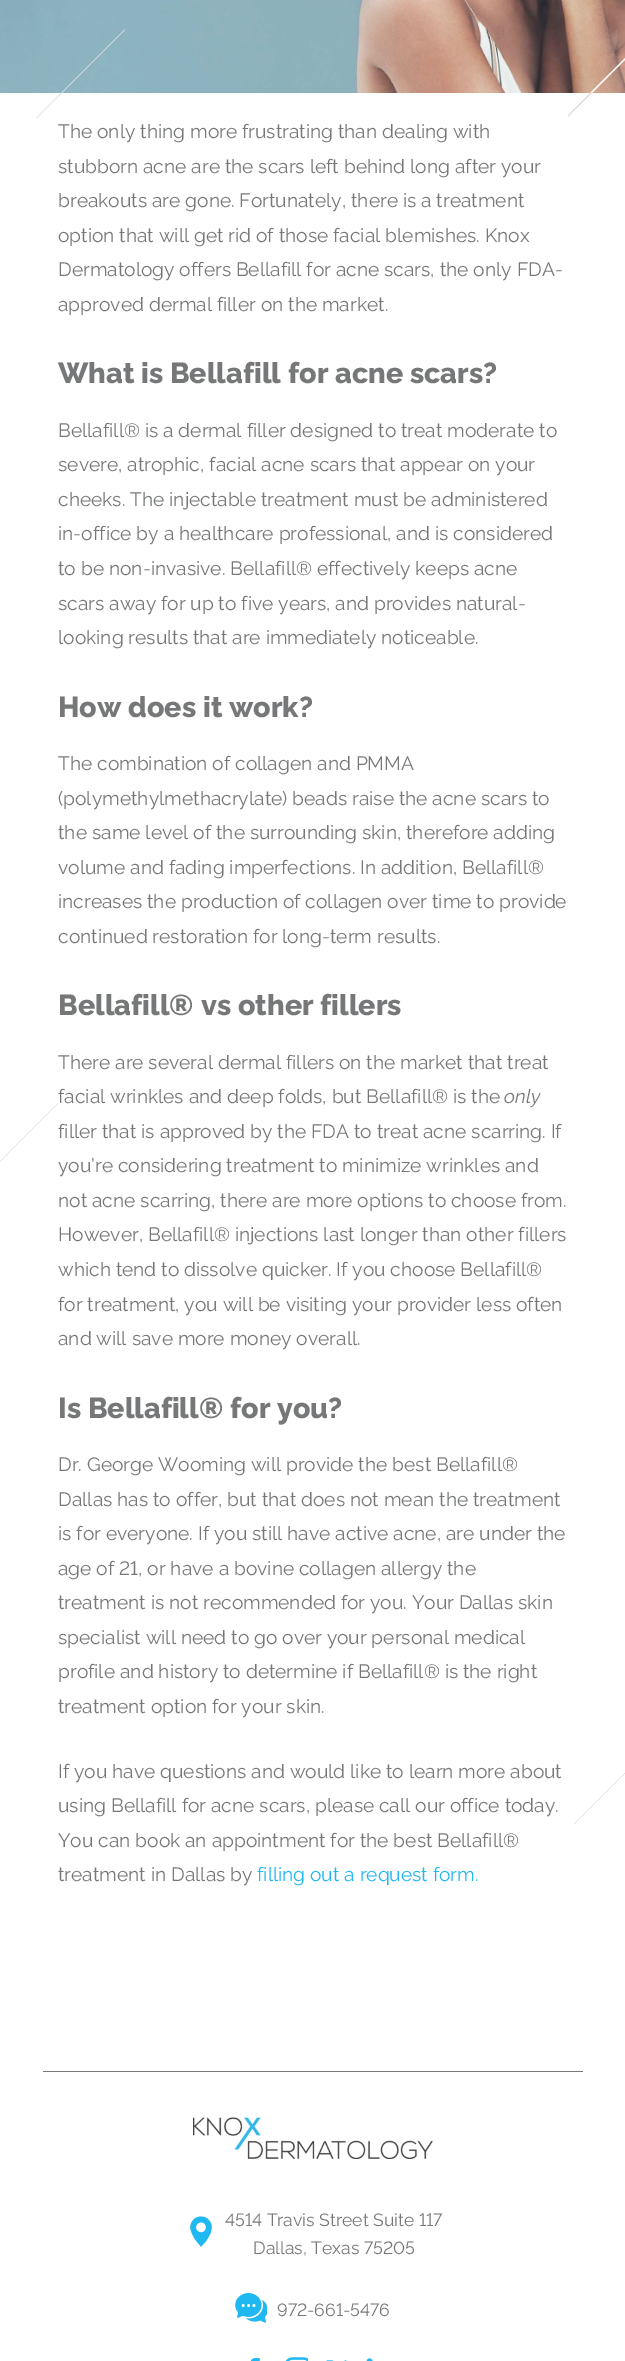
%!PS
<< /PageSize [625 2361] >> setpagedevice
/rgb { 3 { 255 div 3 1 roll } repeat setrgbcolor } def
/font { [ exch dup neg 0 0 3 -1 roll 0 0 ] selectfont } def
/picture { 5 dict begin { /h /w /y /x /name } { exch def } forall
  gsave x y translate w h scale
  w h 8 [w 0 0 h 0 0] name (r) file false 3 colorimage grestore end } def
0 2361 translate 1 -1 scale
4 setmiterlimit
255 255 255 rgb
0 0 625 2361 rectfill
(img/1.rgb) 0 1103 625 722 picture
(img/2.rgb) 0 0 625 93 picture
222 222 222 rgb
525 158 moveto 591 92 lineto 592 93 lineto 525 159 lineto closepath fill
255 255 255 rgb
58 115 510 989 rectfill
222 222 222 rgb
36 118 moveto 125 29 lineto 125 30 lineto 37 118 lineto closepath fill
255 255 255 rgb
591 92 moveto 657 26 lineto 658 27 lineto 592 93 lineto closepath fill
118 119 120 rgb
43 2071 540 1 rectfill
(img/3.rgb) 193 2117 240 42 picture
(img/4.rgb) 190 2216 22 31 picture
(img/5.rgb) 235 2293 32 30 picture
(img/6.rgb) 250 2358 10 3 picture
(img/7.rgb) 285 2357 23 4 picture
(img/8.rgb) 326 2360 21 1 picture
(img/9.rgb) 366 2358 7 3 picture
/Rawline-Regular 19.2 font
[
  [(The only thing more frustrating than dealing with) 58 138]
  [(stubborn acne are the scars left behind long after your) 58 173]
  [(breakouts are gone. Fortunately, there is a treatment) 58 207]
  [(option that will get rid of those facial blemishes. Knox) 58 242]
  [(Dermatology offers Bellafill for acne scars, the only FDA-) 58 276]
  [(approved dermal filler on the market.) 58 311]
] { aload pop moveto show } forall
/Rawline-ExtraBold 28.75 font
58 383 moveto (What is Bellafill) show
288 383 moveto (for acne scars?) show
/Rawline-Regular 19.2 font
[
  [(Bellafill® is a dermal filler designed to treat moderate to) 58 437]
  [(severe, atrophic, facial acne scars that appear on your) 58 471]
  [(cheeks. The injectable treatment must be administered) 58 506]
  [(in-office by a healthcare professional, and is considered) 58 540]
  [(to be non-invasive. Bellafill® effectively keeps acne) 58 575]
  [(scars away for up to five years, and provides natural-) 58 610]
  [(looking results that are immediately noticeable.) 58 644]
] { aload pop moveto show } forall
/Rawline-ExtraBold 28.75 font
58 717 moveto (How does it work?) show
/Rawline-Regular 19.2 font
[
  [(The combination of collagen and PMMA) 58 770]
  [(\(polymethylmethacrylate\) beads raise the acne scars to) 58 805]
  [(the same level of the surrounding skin, therefore adding) 58 839]
  [(volume and fading imperfections. In addition, Bellafill®) 58 874]
  [(increases the production of collagen over time to provide) 58 908]
  [(continued restoration for long-term results.) 58 943]
] { aload pop moveto show } forall
/Rawline-ExtraBold 28.75 font
58 1015 moveto (Bellafill®) show
201 1015 moveto (vs other fillers) show
/Rawline-Regular 19.2 font
58 1069 moveto (There are several dermal fillers on the market that treat) show
58 1103 moveto (facial wrinkles and deep folds, but Bellafill® is the) show
/Rawline-Italic 19.2 font
504 1103 moveto (only) show
/Rawline-Regular 19.2 font
[
  [(filler that is approved by the FDA to treat acne scarring. If) 58 1138]
  [(you’re considering treatment to minimize wrinkles and) 58 1172]
  [(not acne scarring, there are more options to choose from.) 58 1207]
  [(However, Bellafill® injections last longer than other fillers) 58 1241]
  [(which tend to dissolve quicker. If you choose Bellafill®) 58 1276]
  [(for treatment, you will be visiting your provider less often) 58 1311]
  [(and will save more money overall.) 58 1345]
] { aload pop moveto show } forall
/Rawline-ExtraBold 28.75 font
58 1418 moveto (Is Bellafill®) show
230 1418 moveto (for you?) show
/Rawline-Regular 19.2 font
[
  [(Dr. George Wooming will provide the best Bellafill®) 58 1471]
  [(Dallas has to offer, but that does not mean the treatment) 58 1506]
  [(is for everyone. If you still have active acne, are under the) 58 1540]
  [(age of 21, or have a bovine collagen allergy the) 58 1575]
  [(treatment is not recommended for you. Your Dallas skin) 58 1609]
  [(specialist will need to go over your personal medical) 58 1644]
  [(profile and history to determine if Bellafill® is the right) 58 1678]
  [(treatment option for your skin.) 58 1713]
  [(If you have questions and would like to learn more about) 58 1778]
  [(using Bellafill for acne scars, please call our office today.) 58 1812]
  [(You can book an appointment for the best Bellafill®) 58 1847]
  [(treatment in Dallas by) 58 1881]
] { aload pop moveto show } forall
31 184 241 rgb
257 1881 moveto (filling out a request form.) show
/Rawline-Regular 17.6 font
118 119 120 rgb
[
  [(4514 Travis Street Suite 117) 225 2226]
  [(Dallas, Texas 75205) 253 2254]
  [(972-661-5476) 277 2316]
] { aload pop moveto show } forall
showpage
